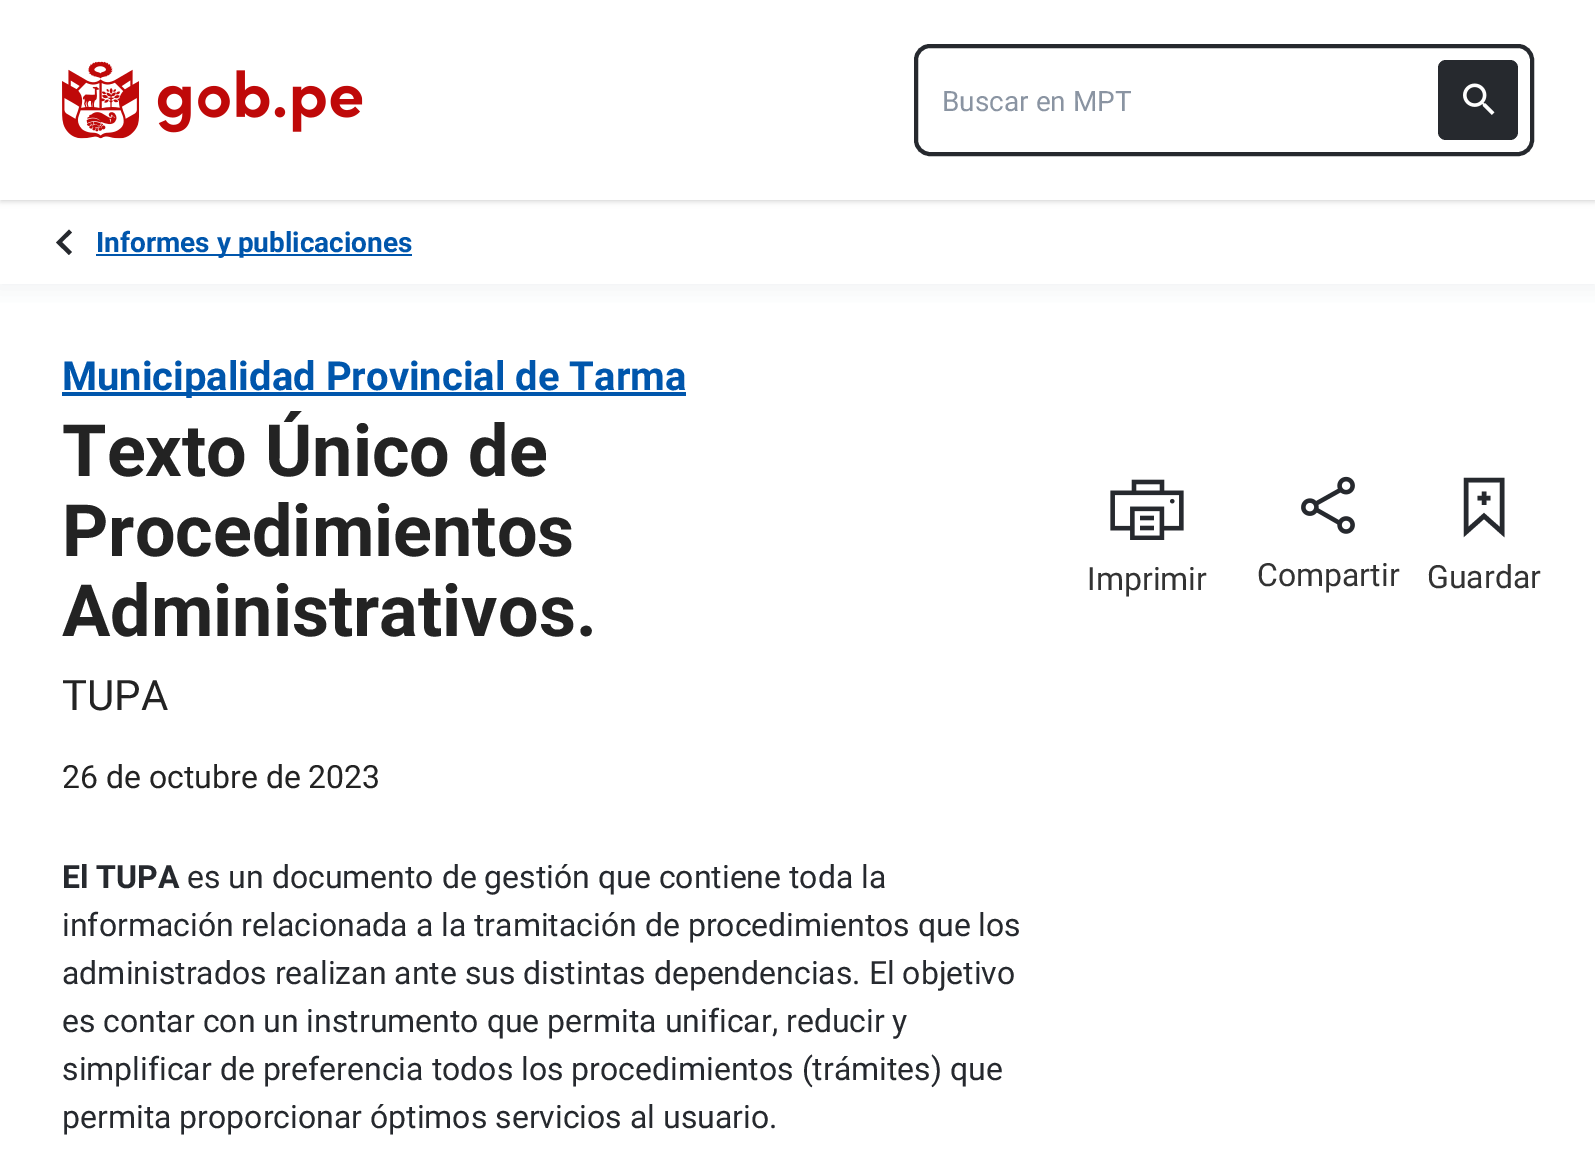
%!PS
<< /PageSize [1595 1153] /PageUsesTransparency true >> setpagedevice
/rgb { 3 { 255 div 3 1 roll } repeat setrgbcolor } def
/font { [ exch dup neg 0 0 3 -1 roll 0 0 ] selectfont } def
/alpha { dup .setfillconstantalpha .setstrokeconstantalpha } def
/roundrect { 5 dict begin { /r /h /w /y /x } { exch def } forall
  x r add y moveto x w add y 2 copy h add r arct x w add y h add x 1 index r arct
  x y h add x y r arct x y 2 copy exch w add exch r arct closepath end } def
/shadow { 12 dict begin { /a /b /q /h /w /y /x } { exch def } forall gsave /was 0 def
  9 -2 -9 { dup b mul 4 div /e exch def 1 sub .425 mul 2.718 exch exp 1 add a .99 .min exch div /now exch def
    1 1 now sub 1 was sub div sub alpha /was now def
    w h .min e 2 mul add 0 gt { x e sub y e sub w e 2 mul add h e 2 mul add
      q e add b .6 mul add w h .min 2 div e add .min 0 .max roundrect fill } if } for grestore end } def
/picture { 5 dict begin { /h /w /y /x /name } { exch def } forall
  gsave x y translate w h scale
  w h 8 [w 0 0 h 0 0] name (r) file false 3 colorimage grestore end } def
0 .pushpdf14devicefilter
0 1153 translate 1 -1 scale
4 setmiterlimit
255 255 255 rgb
0 0 1595 1153 rectfill
0 0 0 rgb
2 4 1592 196 0 2 0.1 shadow
0 2 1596 200 0 3 0.1 shadow
gsave
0 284 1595 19 rectclip
190 199 211 rgb
-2 200 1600 88 0 11 0.25 shadow
grestore
255 255 255 rgb
0 0 1595 200 rectfill
(img/1.rgb) 62 61 301 78 picture
38 41 46 rgb
4 setlinewidth
916 46 616 108 14 roundrect stroke
1438 60 80 80 8 roundrect fill
(img/2.rgb) 1463 83 32 32 picture
72 232.5 moveto 62 242 lineto 72 252 lineto 69 255 lineto 56 242.5 lineto 69 229.5 lineto closepath fill
0 86 172 rgb
96 254 316 2 rectfill
62 392 624 4 rectfill
(img/3.rgb) 1110 479 74 61 picture
(img/4.rgb) 1301 476 54 58 picture
38 41 46 rgb
4.6 setlinewidth
1502 532 moveto 1484 516 lineto 1466 532 lineto 1466 480 lineto 1502 480 lineto closepath 1484 491.5 moveto 1484 505 lineto 1477.5 498 moveto 1490.5 498 lineto stroke
/Roboto-Regular 28 font
138 148 162 rgb
942 111 moveto (Buscar en MPT) show
/Roboto-Bold 28 font
0 86 172 rgb
96 252 moveto (Informes y publicaciones) show
/Roboto-Bold 40 font
62 390 moveto (Municipalidad Provincial de Tarma) show
/Roboto-Bold 72 font
35 35 35 rgb
[
  [(Texto Único de) 62 476]
  [(Procedimientos) 62 556]
  [(Administrativos.) 62 636]
] { aload pop moveto show } forall
/Roboto-Regular 42 font
62 710 moveto (TUPA) show
/Roboto-Regular 32 font
62 788 moveto (26 de octubre de 2023) show
/Roboto-Bold 32 font
38 41 46 rgb
62 888 moveto (El TUPA) show
/Roboto-Regular 32 font
[
  [(es un documento de gestión que contiene toda la) 187 888]
  [(información relacionada a la tramitación de procedimientos que los) 62 936]
  [(administrados realizan ante sus distintas dependencias. El objetivo) 62 984]
  [(es contar con un instrumento que permita unificar, reducir y) 62 1032]
  [(simplificar de preferencia todos los procedimientos \(trámites\) que) 62 1080]
  [(permita proporcionar óptimos servicios al usuario.) 62 1128]
] { aload pop moveto show } forall
51 51 51 rgb
[
  [(Imprimir) 1087 590]
  [(Compartir) 1257 586]
  [(Guardar) 1427 588]
] { aload pop moveto show } forall
.poppdf14devicefilter showpage
